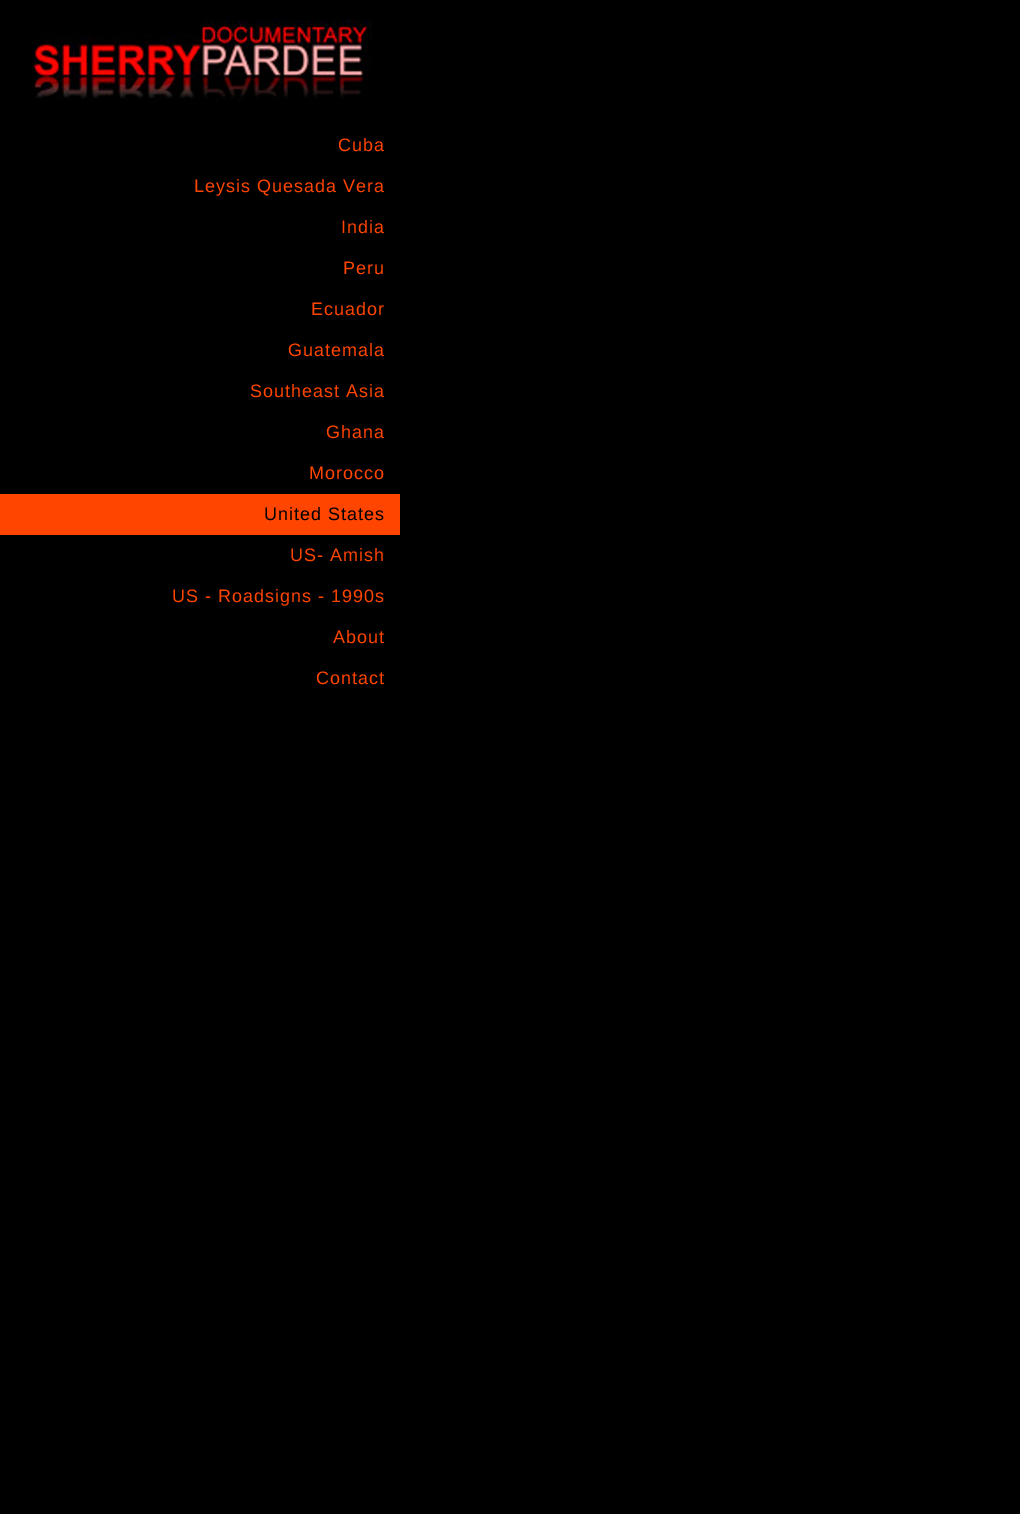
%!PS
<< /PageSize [1020 1514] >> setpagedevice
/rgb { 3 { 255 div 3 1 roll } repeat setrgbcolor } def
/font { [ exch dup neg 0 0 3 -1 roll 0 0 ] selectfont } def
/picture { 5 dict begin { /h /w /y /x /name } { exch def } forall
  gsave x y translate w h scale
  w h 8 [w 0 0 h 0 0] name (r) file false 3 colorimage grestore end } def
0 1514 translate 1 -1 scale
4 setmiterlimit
0 0 0 rgb
0 0 1020 1514 rectfill
(img/1.rgb) 33 20 339 81 picture
255 69 0 rgb
0 494 400 41 rectfill
/LiberationSans-Regular 18 font
338 151 moveto 1 0 (Cuba) ashow
194 192 moveto 1 0 (Leysis Quesada Vera) ashow
341 233 moveto 1 0 (India) ashow
343 274 moveto 1 0 (Peru) ashow
311 315 moveto 1 0 (Ecuador) ashow
288 356 moveto 1 0 (Guatemala) ashow
250 397 moveto 1 0 (Southeast Asia) ashow
326 438 moveto 1 0 (Ghana) ashow
309 479 moveto 1 0 (Morocco) ashow
0 0 0 rgb
264 520 moveto 1 0 (United States) ashow
255 69 0 rgb
290 561 moveto 1 0 (US- Amish) ashow
172 602 moveto 1 0 (US - Roadsigns - 1990s) ashow
333 643 moveto 1 0 (About) ashow
316 684 moveto 1 0 (Contact) ashow
showpage
